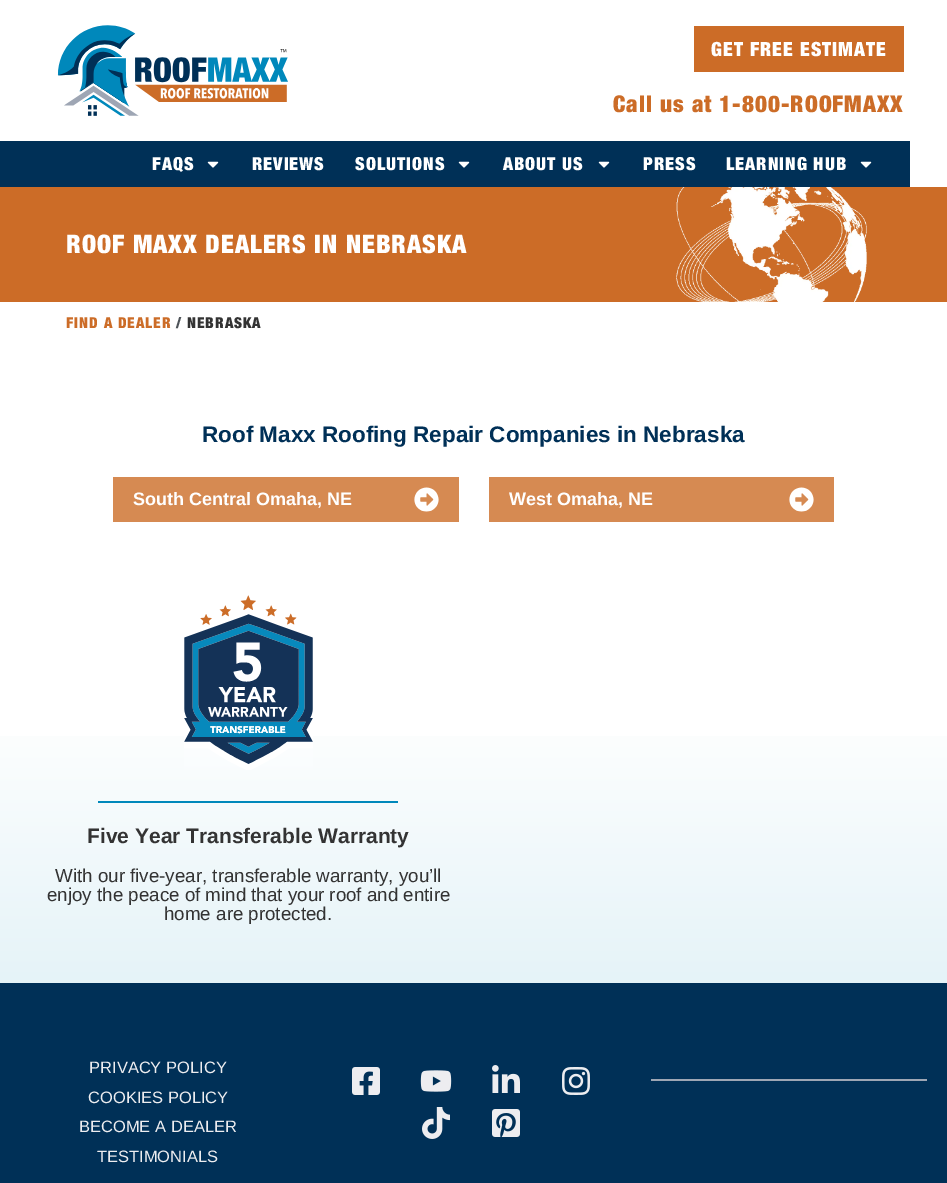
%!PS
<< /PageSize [947 1183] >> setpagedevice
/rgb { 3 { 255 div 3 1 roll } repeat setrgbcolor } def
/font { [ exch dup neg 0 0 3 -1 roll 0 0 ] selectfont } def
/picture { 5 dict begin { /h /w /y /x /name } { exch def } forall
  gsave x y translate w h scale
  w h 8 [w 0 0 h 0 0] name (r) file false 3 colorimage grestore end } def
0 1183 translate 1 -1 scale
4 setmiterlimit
255 255 255 rgb
0 0 947 1183 rectfill
(img/1.rgb) 57 25 231 91 picture
204 108 39 rgb
694 26 210 46 rectfill
0 48 87 rgb
0 141 910 46 rectfill
(img/2.rgb) 207 161 12 7 picture
(img/2.rgb) 458 161 12 7 picture
(img/2.rgb) 598 161 12 7 picture
(img/2.rgb) 860 161 12 7 picture
204 108 39 rgb
0 187 947 115 rectfill
(img/3.rgb) 676 187 191 115 picture
214 138 82 rgb
113 477 346 45 rectfill
(img/4.rgb) 414 487 25 25 picture
489 477 345 45 rectfill
(img/4.rgb) 789 487 25 25 picture
gsave 0 736 moveto 947 736 lineto 947 983 lineto 0 983 lineto closepath clip newpath
<< /ShadingType 2 /ColorSpace /DeviceRGB /Coords [474 562 474 983] /Extend [true true] /Function << /FunctionType 3 /Domain [0 1] /Functions [<< /FunctionType 2 /Domain [0 1] /C0 [1 1 1] /C1 [1 1 1] /N 1 >> << /FunctionType 2 /Domain [0 1] /C0 [1 1 1] /C1 [0.898 0.953 0.973] /N 1 >>] /Bounds [0.35] /Encode [0 1 0 1] >> >> shfill grestore
(img/5.rgb) 184 595 129 175 picture
0 136 187 rgb
98 801 300 2 rectfill
0 48 87 rgb
0 983 947 200 rectfill
(img/6.rgb) 352 1067 28 28 picture
(img/7.rgb) 420 1070 32 22 picture
(img/8.rgb) 492 1065 28 28 picture
(img/9.rgb) 562 1067 28 28 picture
(img/10.rgb) 422 1107 28 32 picture
(img/11.rgb) 492 1109 28 28 picture
158 166 180 rgb
651 1079 276 2 rectfill
/HelveticaNeue-Black 19.5 font
255 255 255 rgb
711 56 moveto 1 0 (GET FREE ESTIMATE) ashow
/HelveticaNeue-Black 23.1 font
204 108 39 rgb
613 112 moveto 1 0 (Call us at 1-800-ROOFMAXX) ashow
/HelveticaNeue-Black 18 font
255 255 255 rgb
152 170 moveto 1 0 (FAQS) ashow
252 170 moveto 1 0 (REVIEWS) ashow
355 170 moveto 1 0 (SOLUTIONS) ashow
503 170 moveto 1 0 (ABOUT US) ashow
643 170 moveto 1 0 (PRESS) ashow
726 170 moveto 1 0 (LEARNING HUB) ashow
/HelveticaNeue-Black 25.5 font
66 253 moveto 1 0 (ROOF MAXX DEALERS IN NEBRASKA) ashow
/HelveticaNeue-Black 15 font
204 108 39 rgb
66 328 moveto 1 0 (FIND A DEALER) ashow
79 84 89 rgb
176 328 moveto 1 0 (/) ashow
51 51 51 rgb
187 328 moveto 1 0 (NEBRASKA) ashow
/LiberationSans-Bold 22.5 font
0 48 87 rgb
202 442 moveto (Roof Maxx Roofing Repair Companies in Nebraska) show
/LiberationSans-Bold 18 font
255 255 255 rgb
133 505 moveto (South Central Omaha, NE) show
509 505 moveto (West Omaha, NE) show
/LiberationSans-Bold 21 font
51 51 51 rgb
87 843 moveto (Five Year Transferable Warranty) show
/LiberationSans-Regular 18.75 font
[
  [(With our five-year, transferable warranty, you’ll) 55 882]
  [(enjoy the peace of mind that your roof and entire) 47 901]
  [(home are protected.) 164 920]
] { aload pop moveto show } forall
/LiberationSans-Regular 16.5 font
237 237 240 rgb
[
  [(PRIVACY POLICY) 89 1073]
  [(COOKIES POLICY) 88 1103]
  [(BECOME A DEALER) 79 1132]
  [(TESTIMONIALS) 97 1162]
] { aload pop moveto show } forall
showpage
